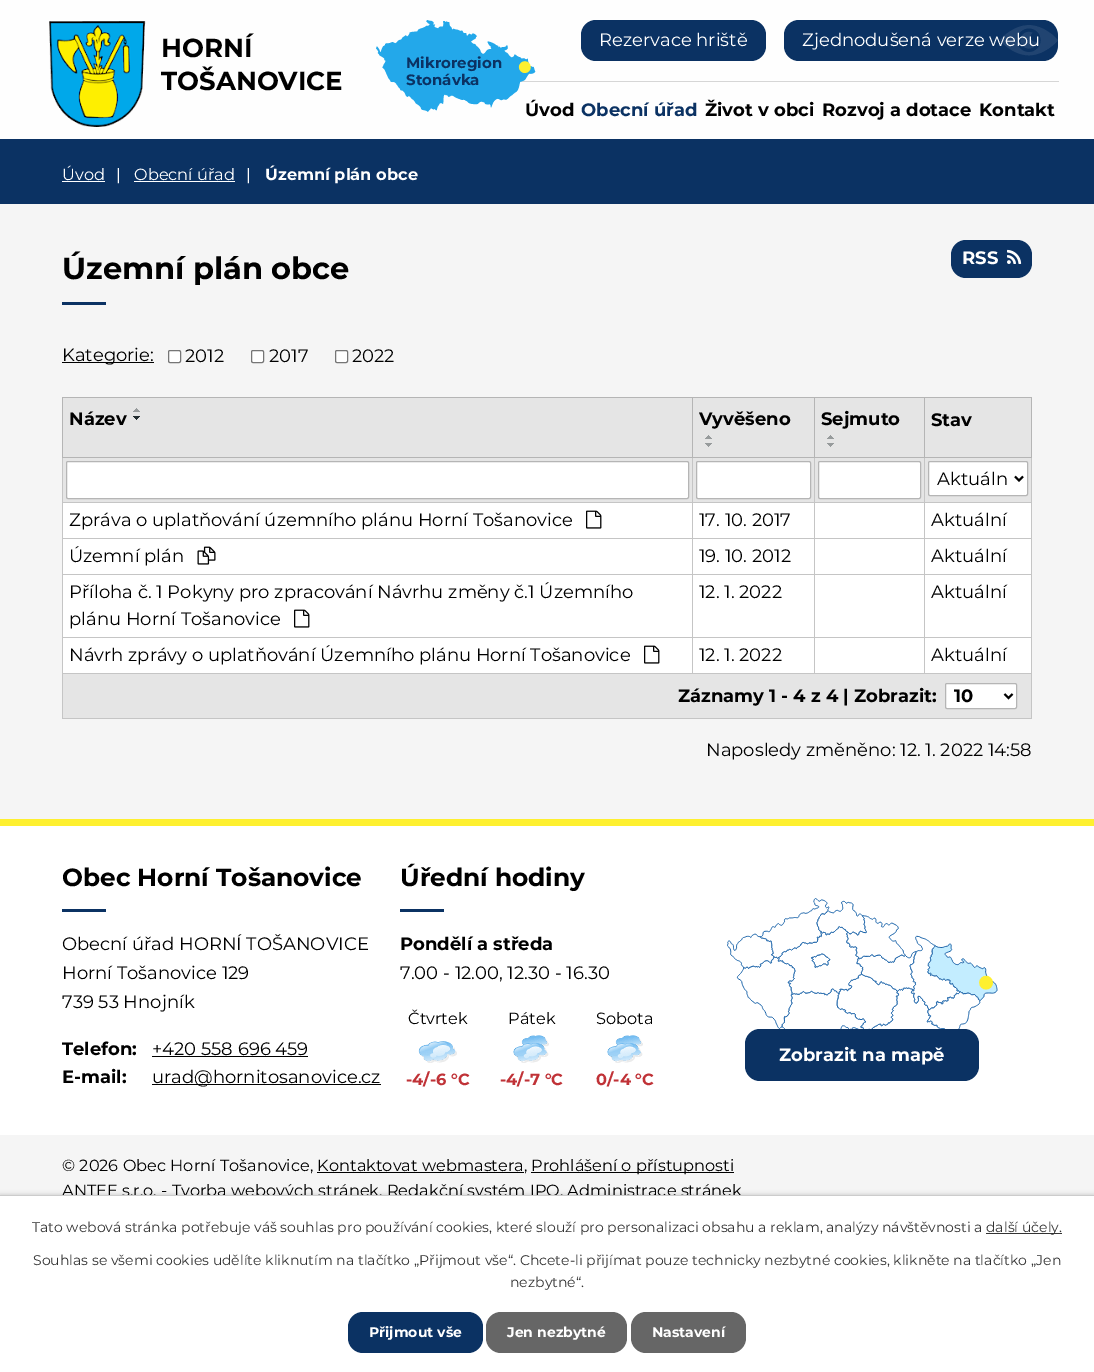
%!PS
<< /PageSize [1094 1372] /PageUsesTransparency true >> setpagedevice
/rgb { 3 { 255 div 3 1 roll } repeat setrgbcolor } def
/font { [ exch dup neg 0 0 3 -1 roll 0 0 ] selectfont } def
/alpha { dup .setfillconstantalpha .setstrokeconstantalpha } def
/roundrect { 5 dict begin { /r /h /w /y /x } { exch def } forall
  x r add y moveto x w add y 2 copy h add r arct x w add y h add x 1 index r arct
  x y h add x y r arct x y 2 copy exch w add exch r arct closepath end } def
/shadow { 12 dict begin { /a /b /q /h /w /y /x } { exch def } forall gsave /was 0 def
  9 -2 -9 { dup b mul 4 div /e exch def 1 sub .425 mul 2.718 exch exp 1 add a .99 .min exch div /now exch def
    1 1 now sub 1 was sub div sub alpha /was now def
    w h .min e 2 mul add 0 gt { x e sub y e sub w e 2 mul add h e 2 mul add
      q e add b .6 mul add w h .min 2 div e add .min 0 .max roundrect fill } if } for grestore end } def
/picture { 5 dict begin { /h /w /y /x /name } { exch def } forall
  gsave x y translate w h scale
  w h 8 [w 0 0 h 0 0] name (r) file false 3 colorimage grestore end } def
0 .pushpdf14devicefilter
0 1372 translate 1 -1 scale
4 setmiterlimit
245 245 245 rgb
0 0 1094 1372 rectfill
254 254 254 rgb
0 0 1094 139 rectfill
(img/1.rgb) 49 21 97 106 picture
11 50 99 rgb
581 20 185 41 15 roundrect fill
784 20 274 41 15 roundrect fill
(img/2.rgb) 1000 25 58 31 picture
214 214 214 rgb
521 81 538 1 rectfill
(img/3.rgb) 376 20 160 92 picture
[
  [0 139 1094 65 11 50 99]
  [62 181 43 1 255 255 255]
  [134 181 101 1 255 255 255]
  [62 302 44 3 11 50 99]
] { aload pop rgb rectfill } forall
951 240 81 38 15 roundrect fill
(img/4.rgb) 1007 249 15 15 picture
0 0 0 rgb
62 362 92 1 rectfill
255 255 255 rgb
168.5 350.5 12 12 1.5 roundrect gsave fill grestore
118 118 118 rgb
stroke
255 255 255 rgb
251.5 350.5 12 12 1.5 roundrect gsave fill grestore
118 118 118 rgb
stroke
255 255 255 rgb
335.5 350.5 12 12 1.5 roundrect gsave fill grestore
118 118 118 rgb
stroke
[
  [63 398 629 59 229 229 229]
  [924 397 108 1 181 181 181]
  [924 502 108 1 197 197 197]
  [924 538 108 1 197 197 197]
  [924 574 108 1 197 197 197]
  [924 637 108 1 197 197 197]
  [1031 637 1 37 197 197 197]
  [1031 574 1 64 197 197 197]
  [1031 538 1 37 197 197 197]
  [1031 457 1 82 197 197 197]
  [1031 397 1 61 181 181 181]
  [63 458 968 44 229 229 229]
  [63 503 968 35 255 255 255]
  [63 539 968 35 255 255 255]
  [63 575 968 62 255 255 255]
  [63 638 968 35 255 255 255]
  [924 673 108 1 197 197 197]
  [924 637 1 37 197 197 197]
  [814 637 111 1 197 197 197]
  [924 574 1 64 197 197 197]
  [814 574 111 1 197 197 197]
  [924 538 1 37 197 197 197]
  [814 538 111 1 197 197 197]
  [924 502 1 37 197 197 197]
  [814 502 111 1 197 197 197]
  [924 457 1 46 197 197 197]
  [924 457 108 1 181 181 181]
  [924 397 1 61 181 181 181]
  [814 397 111 1 181 181 181]
  [814 673 111 1 197 197 197]
  [814 637 1 37 197 197 197]
  [692 637 123 1 197 197 197]
  [814 574 1 64 197 197 197]
  [692 574 123 1 197 197 197]
  [814 538 1 37 197 197 197]
  [692 538 123 1 197 197 197]
  [814 502 1 37 197 197 197]
  [692 502 123 1 197 197 197]
  [814 457 1 46 197 197 197]
  [814 457 111 1 181 181 181]
  [814 397 1 61 181 181 181]
  [692 397 123 1 181 181 181]
  [692 673 123 1 197 197 197]
  [692 637 1 37 197 197 197]
  [62 637 631 1 197 197 197]
  [692 574 1 64 197 197 197]
  [62 574 631 1 197 197 197]
  [692 538 1 37 197 197 197]
  [62 538 631 1 197 197 197]
  [692 502 1 37 197 197 197]
  [62 502 631 1 197 197 197]
  [692 457 1 46 197 197 197]
  [692 457 123 1 181 181 181]
  [692 397 1 61 181 181 181]
  [62 397 631 1 181 181 181]
  [62 673 631 1 197 197 197]
  [62 637 1 37 197 197 197]
  [62 574 1 64 197 197 197]
  [62 538 1 37 197 197 197]
  [62 457 1 82 197 197 197]
  [62 457 631 1 181 181 181]
  [62 397 1 61 181 181 181]
] { aload pop rgb rectfill } forall
(img/5.rgb) 133 408 7 4 picture
(img/6.rgb) 133 416 7 4 picture
229 229 229 rgb
693 398 121 59 rectfill
(img/5.rgb) 705 435 7 4 picture
(img/7.rgb) 705 443 7 4 picture
815 398 109 59 rectfill
(img/5.rgb) 827 435 7 4 picture
(img/7.rgb) 827 443 7 4 picture
925 398 106 59 rectfill
255 255 255 rgb
66.5 461.5 622 37 1.5 roundrect gsave fill grestore
181 181 181 rgb
stroke
255 255 255 rgb
696.5 461.5 114 37 1.5 roundrect gsave fill grestore
181 181 181 rgb
stroke
255 255 255 rgb
818.5 461.5 102 37 1.5 roundrect gsave fill grestore
181 181 181 rgb
stroke
255 255 255 rgb
928.5 461.5 99 34 1.5 roundrect gsave fill grestore
181 181 181 rgb
stroke
0 0 0 rgb
2 setlinewidth
1015 476.5 moveto 1019 480.5 lineto 1023 476.5 lineto stroke
(img/8.rgb) 586 510 16 19 picture
(img/9.rgb) 197 546 19 19 picture
(img/8.rgb) 294 609 16 19 picture
(img/8.rgb) 644 645 16 19 picture
[
  [63 674 968 44 229 229 229]
  [1031 673 1 46 197 197 197]
  [62 718 970 1 197 197 197]
  [62 673 1 46 197 197 197]
] { aload pop rgb rectfill } forall
255 255 255 rgb
945.5 683.5 71 25 1.5 roundrect gsave fill grestore
181 181 181 rgb
1 setlinewidth
stroke
0 0 0 rgb
2 setlinewidth
1004.5 694 moveto 1008.5 698 lineto 1012.5 694 lineto stroke
[
  [0 826 1094 309 255 255 255]
  [0 819 1094 7 254 240 48]
  [62 909 44 3 11 50 99]
  [152 1056 156 1 0 0 0]
  [152 1084 229 1 0 0 0]
  [400 909 44 3 11 50 99]
] { aload pop rgb rectfill } forall
(img/10.rgb) 418 1041 39 22 picture
(img/11.rgb) 513 1035 36 28 picture
(img/11.rgb) 607 1035 36 28 picture
(img/12.rgb) 727 898 271 131 picture
745 1029 234 52 15 roundrect fill
0 0 0 rgb
531 1172 203 1 rectfill
317 1172 207 1 rectfill
0 1195 1094 177 0 2.5 0.2 shadow
/Montserrat-Bold 26 font
161 57 moveto (HORNÍ) show
161 90 moveto (TOŠANOVICE) show
/Montserrat-Regular 18 font
255 255 255 rgb
599 46 moveto (Rezervace hriště) show
802 46 moveto (Zjednodušená verze webu) show
/Montserrat-Bold 15 font
11 50 99 rgb
406 68 moveto (Mikroregion) show
406 85 moveto (Stonávka) show
/Montserrat-Bold 18 font
0 0 0 rgb
525 116 moveto (Úvod) show
11 50 99 rgb
581 116 moveto (Obecní úřad) show
0 0 0 rgb
[
  [(Život v obci) 705 116]
  [(Rozvoj a dotace) 822 116]
  [(Kontakt) 979 116]
] { aload pop moveto show } forall
/Montserrat-Regular 16.2 font
255 255 255 rgb
[
  [(Úvod) 62 180]
  [(|) 116 180]
  [(Obecní úřad) 134 180]
  [(|) 246 180]
] { aload pop moveto show } forall
/Montserrat-Bold 16.2 font
265 180 moveto (Územní plán obce) show
/Montserrat-Bold 30.5 font
0 0 0 rgb
62 279 moveto (Územní plán obce) show
/Montserrat-Bold 18 font
255 255 255 rgb
962 264 moveto (RSS) show
/Montserrat-Regular 18 font
0 0 0 rgb
[
  [(Kategorie:) 62 361]
  [(2012) 185 362]
  [(2017) 269 362]
  [(2022) 352 362]
] { aload pop moveto show } forall
/Montserrat-Bold 18 font
[
  [(Název) 69 425]
  [(Vyvěšeno) 699 425]
  [(Sejmuto) 821 425]
  [(Stav) 931 426]
] { aload pop moveto show } forall
/Montserrat-Regular 18 font
[
  [(Aktuáln) 937 485]
  [(Zpráva o uplatňování územního plánu Horní Tošanovice) 69 526]
  [(17. 10. 2017) 699 526]
  [(Aktuální) 931 526]
  [(Územní plán) 69 562]
  [(19. 10. 2012) 699 562]
  [(Aktuální) 931 562]
  [(Příloha č. 1 Pokyny pro zpracování Návrhu změny č.1 Územního) 69 598]
  [(plánu Horní Tošanovice) 69 625]
  [(12. 1. 2022) 699 598]
  [(Aktuální) 931 598]
  [(Návrh zprávy o uplatňování Územního plánu Horní Tošanovice) 69 661]
  [(12. 1. 2022) 699 661]
  [(Aktuální) 931 661]
] { aload pop moveto show } forall
/Montserrat-Bold 18 font
678 702 moveto (Záznamy 1 - 4 z 4 | Zobrazit:) show
954 702 moveto (10) show
/Montserrat-Regular 18 font
706 756 moveto (Naposledy změněno: 12. 1. 2022 14:58) show
/Montserrat-Bold 24.8 font
62 886 moveto (Obec Horní Tošanovice) show
/Montserrat-Regular 18 font
[
  [(Obecní úřad HORNÍ TOŠANOVICE) 62 950]
  [(Horní Tošanovice 129) 62 979]
  [(739 53 Hnojník) 62 1008]
] { aload pop moveto show } forall
/Montserrat-Bold 18 font
62 1055 moveto (Telefon:) show
/Montserrat-Regular 18 font
152 1055 moveto (+420 558 696 459) show
/Montserrat-Bold 18 font
62 1083 moveto (E-mail:) show
/Montserrat-Regular 18 font
152 1083 moveto (urad@hornitosanovice.cz) show
/Montserrat-Bold 24.8 font
400 886 moveto (Úřední hodiny) show
/Montserrat-Bold 18 font
400 950 moveto (Pondělí a středa) show
/Montserrat-Regular 18 font
400 979 moveto (7.00 - 12.00, 12.30 - 16.30) show
/Montserrat-Regular 16.2 font
408 1024 moveto (Čtvrtek) show
/Montserrat-Bold 16.2 font
192 50 55 rgb
406 1085 moveto (-4/-6 °C) show
/Montserrat-Regular 16.2 font
0 0 0 rgb
508 1024 moveto (Pátek) show
/Montserrat-Bold 16.2 font
192 50 55 rgb
500 1085 moveto (-4/-7 °C) show
/Montserrat-Regular 16.2 font
0 0 0 rgb
596 1024 moveto (Sobota) show
/Montserrat-Bold 16.2 font
192 50 55 rgb
596 1085 moveto (0/-4 °C) show
/Montserrat-Bold 18 font
255 255 255 rgb
779 1061 moveto (Zobrazit na mapě) show
/Montserrat-Regular 16.2 font
0 0 0 rgb
[
  [(© 2026 Obec Horní Tošanovice, Kontaktovat webmastera,) 62 1171]
  [(Prohlášení o přístupnosti) 531 1171]
  [(ANTEE s.r.o. - Tvorba webových stránek, Redakční systém IPO, Administrace stránek) 62 1196]
] { aload pop moveto show } forall
255 255 255 rgb
0 1196 1094 176 rectfill
204 204 204 rgb
0 1195 1094 1 rectfill
/Montserrat-Regular 14 font
51 51 51 rgb
32 1232 moveto (Tato webová stránka potřebuje váš souhlas pro používání cookies, které slouží pro personalizaci obsahu a reklam, analýzy návštěvnosti a) show
986 1233 76 1 rectfill
[
  [(další účely.) 986 1232]
  [(Souhlas se všemi cookies udělíte kliknutím na tlačítko „Přijmout vše“. Chcete-li přijímat pouze technicky nezbytné cookies, klikněte na tlačítko „Jen) 33 1265]
  [(nezbytné“.) 510 1287]
] { aload pop moveto show } forall
11 50 99 rgb
348 1312 135 41 15 roundrect fill
/Montserrat-Bold 14 font
255 255 255 rgb
369 1337 moveto (Přijmout vše) show
102 102 102 rgb
486 1312 141 41 15 roundrect fill
255 255 255 rgb
507 1337 moveto (Jen nezbytné) show
102 102 102 rgb
631 1312 115 41 15 roundrect fill
255 255 255 rgb
652 1337 moveto (Nastavení) show
.poppdf14devicefilter showpage
